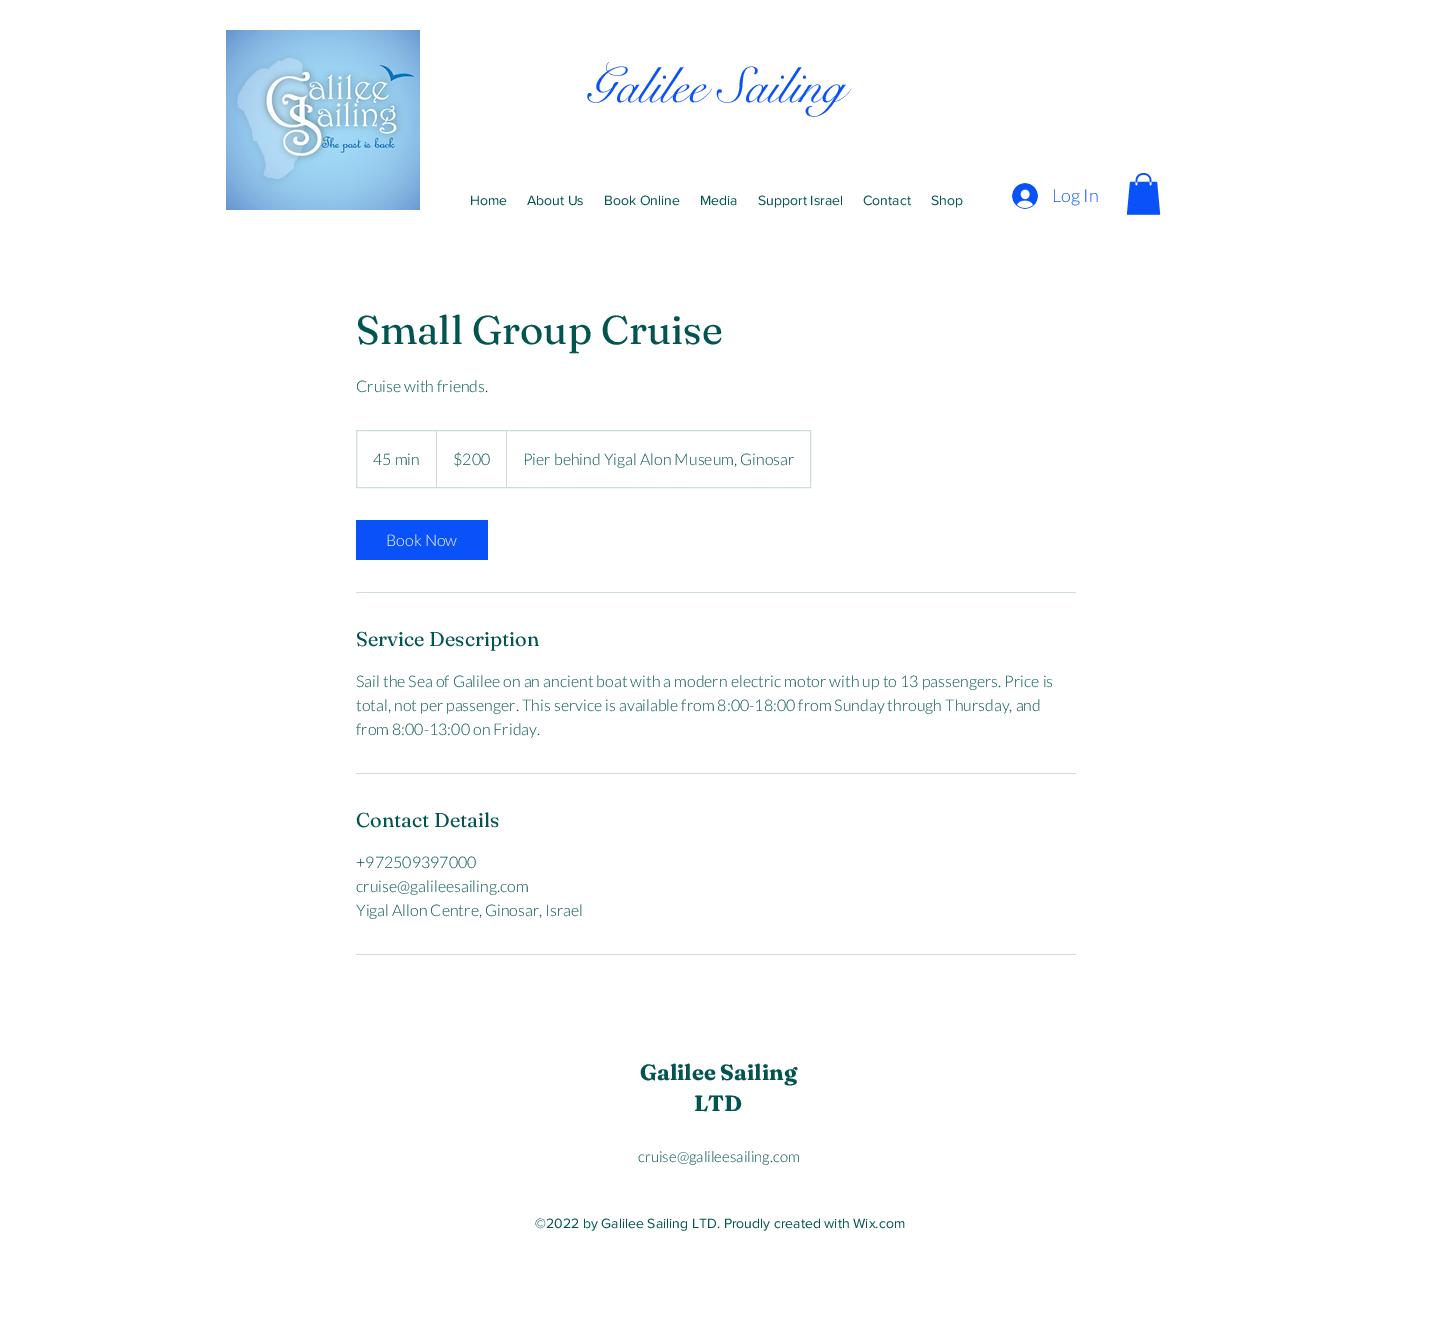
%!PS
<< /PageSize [1432 1338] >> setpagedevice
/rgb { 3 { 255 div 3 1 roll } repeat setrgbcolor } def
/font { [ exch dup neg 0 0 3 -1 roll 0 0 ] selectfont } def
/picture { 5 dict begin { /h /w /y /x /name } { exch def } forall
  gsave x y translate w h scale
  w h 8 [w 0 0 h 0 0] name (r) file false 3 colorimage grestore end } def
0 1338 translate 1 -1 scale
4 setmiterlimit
255 255 255 rgb
0 0 1432 1338 rectfill
(img/1.rgb) 226 30 194 180 picture
(img/2.rgb) 1012 183 26 26 picture
(img/3.rgb) 1126 173 35 42 picture
204 221 220 rgb
356.5 430.5 454 57 rectstroke
436 487 moveto 436 430 lineto 437 431 lineto 437 487 lineto closepath fill
506 487 moveto 506 430 lineto 507 431 lineto 507 487 lineto closepath fill
[
  [356 520 132 40 9 81 249]
  [356 592 720 1 204 221 220]
  [356 773 720 1 204 221 220]
  [356 954 720 1 204 221 220]
] { aload pop rgb rectfill } forall
/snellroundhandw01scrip-Regular 50 font
9 81 249 rgb
586 102 moveto (Galilee Sailing) show
/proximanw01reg-Regular 14 font
1 84 80 rgb
[
  [(Home) 470 205]
  [(About Us) 527 205]
  [(Book Online) 604 205]
  [(Media) 700 205]
  [(Support Israel) 758 205]
  [(Contact) 863 205]
  [(Shop) 931 205]
] { aload pop moveto show } forall
/Lato-Light 18 font
9 81 249 rgb
1052 202 moveto (Log In) show
/Fraunces-Regular 40 font
1 84 80 rgb
356 344 moveto (Small Group Cruise) show
/Lato-Light 16 font
[
  [(Cruise with friends.) 356 392]
  [(45 min) 373 465]
  [($200) 453 465]
  [(Pier behind Yigal Alon Museum, Ginosar) 523 465]
] { aload pop moveto show } forall
255 255 255 rgb
386 546 moveto (Book Now) show
/Fraunces-Regular 20 font
1 84 80 rgb
356 646 moveto (Service Description) show
/Lato-Light 16 font
[
  [(Sail the Sea of Galilee on an ancient boat with a modern electric motor with up to 13 passengers. Price is) 356 687]
  [(total, not per passenger. This service is available from 8:00-18:00 from Sunday through Thursday, and) 356 711]
  [(from 8:00-13:00 on Friday.) 356 735]
] { aload pop moveto show } forall
/Fraunces-Regular 20 font
356 827 moveto (Contact Details) show
/Lato-Light 16 font
[
  [(+972509397000) 356 868]
  [(cruise@galileesailing.com) 356 892]
  [(Yigal Allon Centre, Ginosar, Israel) 356 916]
] { aload pop moveto show } forall
/Fraunces-Bold 22 font
640 1080 moveto (Galilee Sailing) show
694 1111 moveto (LTD) show
/Lato-Light 15 font
638 1162 moveto (cruise@galileesailing.com) show
/proximanw01reg-Regular 14 font
535 1228 moveto (©2022 by Galilee Sailing LTD. Proudly created with Wix.com) show
showpage
